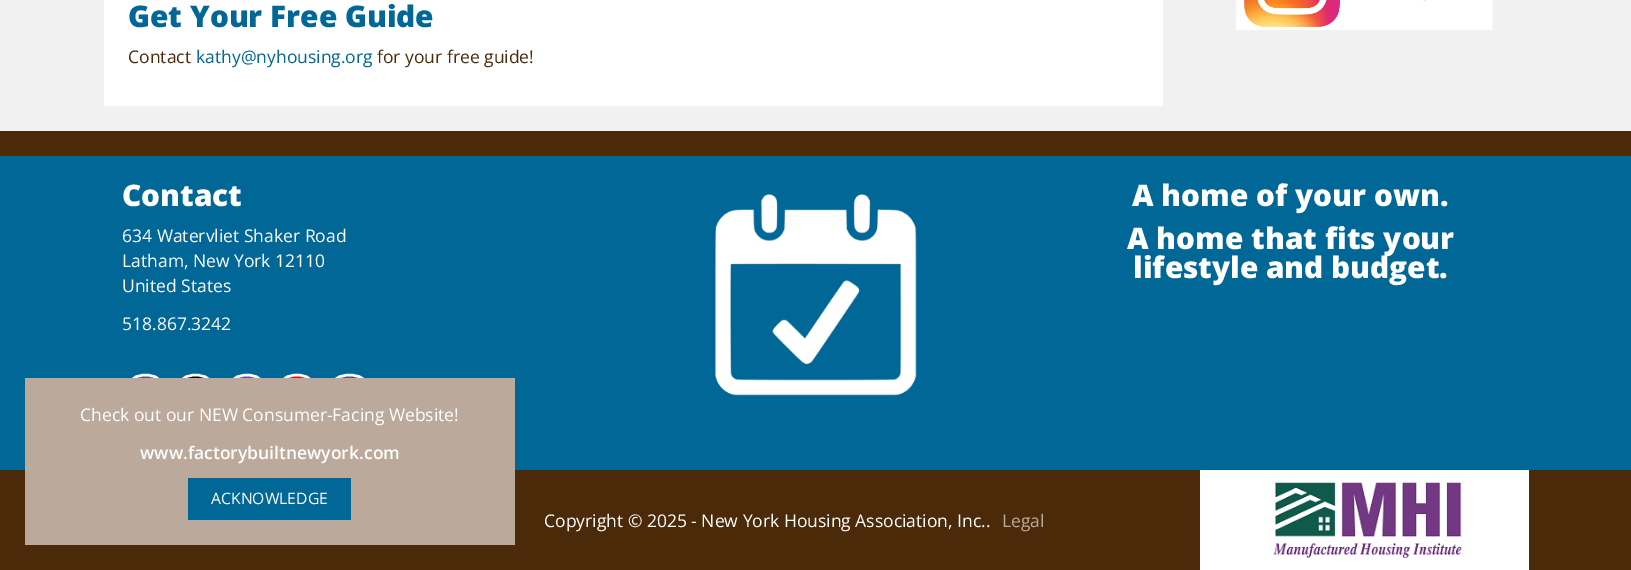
%!PS
<< /PageSize [1631 570] >> setpagedevice
/rgb { 3 { 255 div 3 1 roll } repeat setrgbcolor } def
/font { [ exch dup neg 0 0 3 -1 roll 0 0 ] selectfont } def
/picture { 5 dict begin { /h /w /y /x /name } { exch def } forall
  gsave x y translate w h scale
  w h 8 [w 0 0 h 0 0] name (r) file false 3 colorimage grestore end } def
0 570 translate 1 -1 scale
4 setmiterlimit
241 241 241 rgb
0 0 1631 570 rectfill
255 255 255 rgb
104 0 1059 106 rectfill
(img/1.rgb) 1236 0 257 30 picture
75 42 9 rgb
0 131 1631 25 rectfill
0 103 150 rgb
0 156 1631 314 rectfill
62 84 145 rgb
145.5 374 moveto 158 374 168.5 383.5 168.5 395 curveto 168.5 406.5 158 416 145.5 416 curveto 133 416 122.5 406.5 122.5 395 curveto 122.5 383.5 133 374 145.5 374 curveto closepath fill
255 255 255 rgb
2.5 setlinewidth
145.5 375 moveto 174.5 375 174.5 415 145.5 415 curveto 117 415 117 375 145.5 375 curveto closepath stroke
0 0 0 rgb
195.5 374 moveto 208 374 218.5 383.5 218.5 395 curveto 218.5 406.5 208 416 195.5 416 curveto 183 416 172.5 406.5 172.5 395 curveto 172.5 383.5 183 374 195.5 374 curveto closepath fill
255 255 255 rgb
195.5 375 moveto 224.5 375 224.5 415 195.5 415 curveto 167 415 167 375 195.5 375 curveto closepath stroke
112 66 192 rgb
247 374 moveto 259.5 374 270 383.5 270 395 curveto 270 406.5 259.5 416 247 416 curveto 234.5 416 224 406.5 224 395 curveto 224 383.5 234.5 374 247 374 curveto closepath fill
255 255 255 rgb
247 375 moveto 275.5 375 275.5 415 247 415 curveto 218 415 218 375 247 375 curveto closepath stroke
255 0 0 rgb
297 374 moveto 309.5 374 320 383.5 320 395 curveto 320 406.5 309.5 416 297 416 curveto 284.5 416 274 406.5 274 395 curveto 274 383.5 284.5 374 297 374 curveto closepath fill
255 255 255 rgb
297 375 moveto 325.5 375 325.5 415 297 415 curveto 268 415 268 375 297 375 curveto closepath stroke
62 84 145 rgb
349.5 374 moveto 363 374 374 383.5 374 395 curveto 374 406.5 363 416 349.5 416 curveto 336 416 325 406.5 325 395 curveto 325 383.5 336 374 349.5 374 curveto closepath fill
255 255 255 rgb
349.5 375 moveto 380 375 380 415 349.5 415 curveto 319 415 319 375 349.5 375 curveto closepath stroke
(img/2.rgb) 715 194 202 202 picture
75 42 9 rgb
0 470 1631 100 rectfill
255 255 255 rgb
1200 470 329 100 rectfill
(img/3.rgb) 1273 482 189 76 picture
187 169 155 rgb
25 378 490 167 rectfill
0 103 150 rgb
188 478 163 42 rectfill
/OpenSans-ExtraBold 29.75 font
128 27 moveto (Get Your Free Guide) show
/OpenSans-Regular 17.5 font
75 42 9 rgb
128 63 moveto (Contact) show
0 103 150 rgb
196 63 moveto (kathy@nyhousing.org) show
75 42 9 rgb
377 63 moveto (for your free guide!) show
/OpenSans-ExtraBold 29.75 font
255 255 255 rgb
122 206 moveto (Contact) show
/OpenSans-Regular 17.5 font
[
  [(634 Watervliet Shaker Road) 122 242]
  [(Latham, New York 12110) 122 267]
  [(United States) 122 292]
  [(518.867.3242) 122 330]
] { aload pop moveto show } forall
/OpenSans-ExtraBold 29.75 font
[
  [(A home of your own.) 1132 206]
  [(A home that fits your) 1127 249]
  [(lifestyle and budget.) 1133 278]
] { aload pop moveto show } forall
/OpenSans-Regular 17.5 font
544 527 moveto (Copyright © 2025 - New York Housing Association, Inc..) show
187 169 155 rgb
1002 527 moveto (Legal) show
255 255 255 rgb
80 421 moveto (Check out our NEW Consumer-Facing Website!) show
/OpenSans-SemiBold 17.5 font
140 459 moveto (www.factorybuiltnewyork.com) show
/OpenSans-Regular 15.75 font
211 504 moveto (ACKNOWLEDGE) show
showpage
